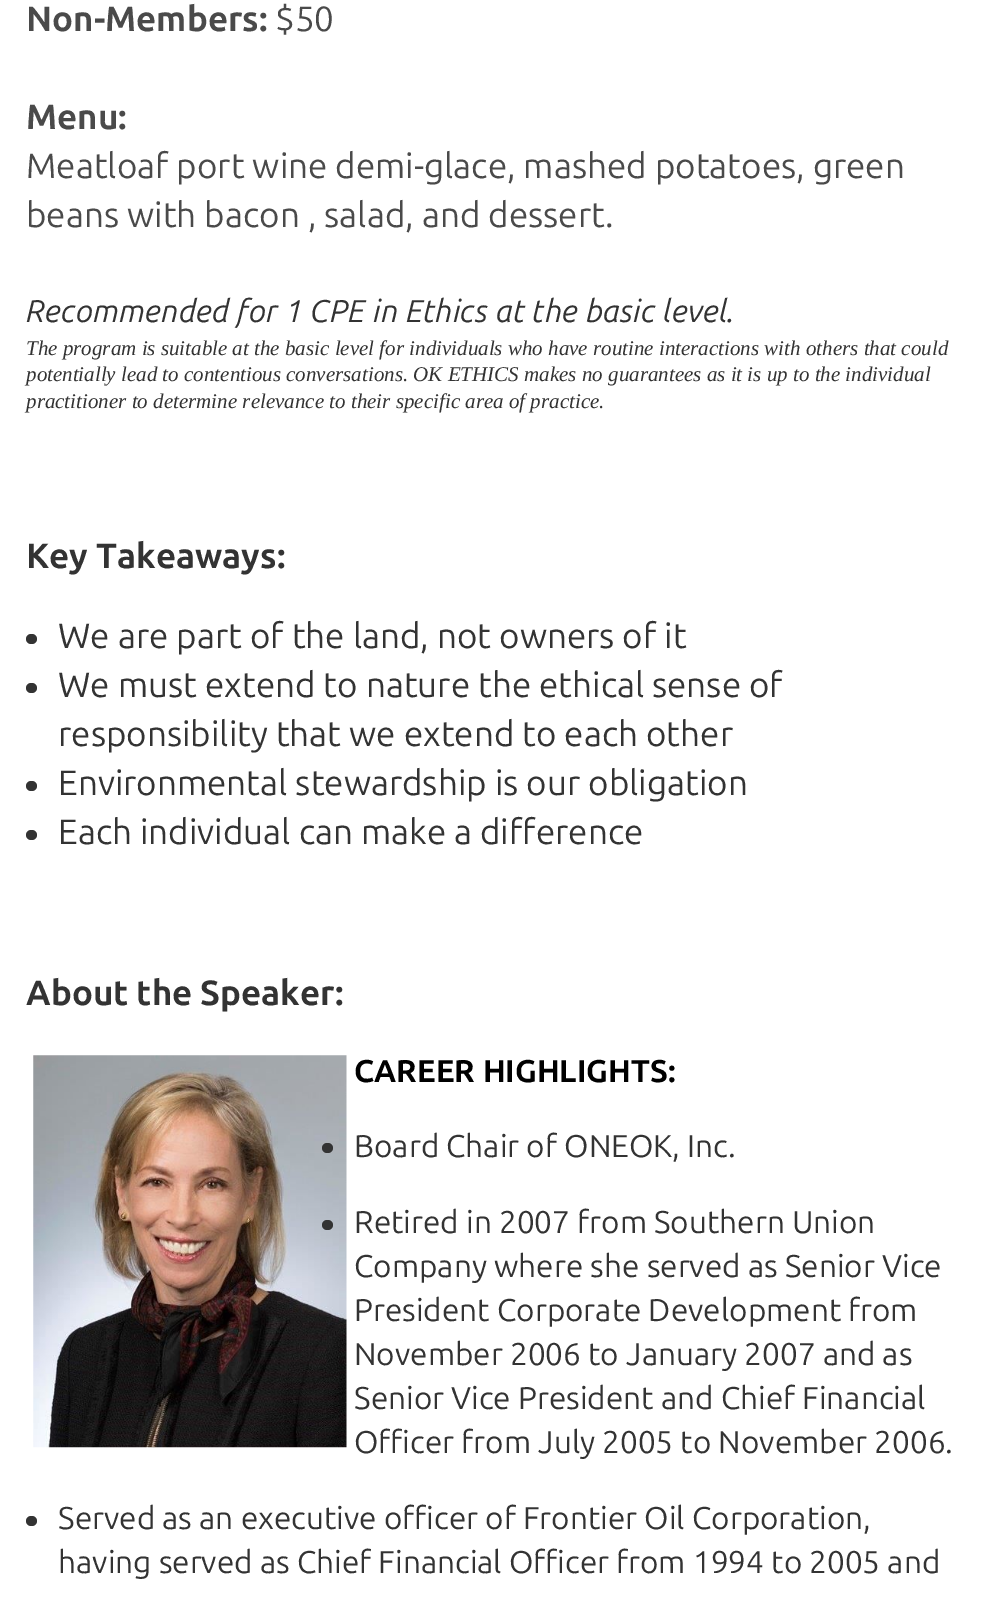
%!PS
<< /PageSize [988 1607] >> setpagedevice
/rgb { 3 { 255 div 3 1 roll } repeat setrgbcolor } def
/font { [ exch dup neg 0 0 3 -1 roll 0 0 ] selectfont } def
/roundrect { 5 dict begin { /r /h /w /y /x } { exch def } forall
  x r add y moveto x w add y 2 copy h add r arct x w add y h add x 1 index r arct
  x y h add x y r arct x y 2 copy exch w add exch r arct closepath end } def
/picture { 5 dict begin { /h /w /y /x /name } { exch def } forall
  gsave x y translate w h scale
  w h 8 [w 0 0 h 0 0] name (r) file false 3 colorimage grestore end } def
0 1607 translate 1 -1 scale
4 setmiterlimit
255 255 255 rgb
0 0 988 1607 rectfill
51 51 51 rgb
26 634 11 10 5 roundrect fill
26 683 11 10 5 roundrect fill
26 781 11 10 5 roundrect fill
26 830 11 10 5 roundrect fill
(img/1.rgb) 33 1055 314 393 picture
322 1143 11 10 5 roundrect fill
322 1220 11 10 5 roundrect fill
26 1516 11 10 5 roundrect fill
/Ubuntu-Bold 35 font
74 74 74 rgb
26 31 moveto (Non-Members:) show
/Ubuntu-Regular 35 font
275 31 moveto ($50) show
/Ubuntu-Bold 35 font
26 129 moveto (Menu:) show
/Ubuntu-Regular 35 font
26 178 moveto (Meatloaf port wine demi-glace, mashed potatoes, green) show
26 227 moveto (beans with bacon , salad, and dessert.) show
/Ubuntu-Italic 31.5 font
51 51 51 rgb
26 322 moveto (Recommended for 1 CPE in Ethics at the basic level.) show
/LiberationSerif-Italic 21 font
[
  [(The program is suitable at the basic level for individuals who have routine interactions with others that could) 26 355]
  [(potentially lead to contentious conversations. OK ETHICS makes no guarantees as it is up to the individual) 26 381]
  [(practitioner to determine relevance to their specific area of practice.) 26 408]
] { aload pop moveto show } forall
/Ubuntu-Bold 35 font
26 568 moveto (Key Takeaways:) show
/Ubuntu-Regular 35 font
[
  [(We are part of the land, not owners of it) 58 648]
  [(We must extend to nature the ethical sense of) 58 697]
  [(responsibility that we extend to each other) 58 746]
  [(Environmental stewardship is our obligation) 58 795]
  [(Each individual can make a difference) 58 844]
] { aload pop moveto show } forall
/Ubuntu-Bold 35 font
26 1005 moveto (About the Speaker:) show
/Ubuntu-Bold 31.5 font
0 0 0 rgb
354 1082 moveto (CAREER HIGHLIGHTS:) show
/Ubuntu-Regular 31.5 font
51 51 51 rgb
[
  [(Board Chair of ONEOK, Inc.) 354 1157]
  [(Retired in 2007 from Southern Union) 354 1233]
  [(Company where she served as Senior Vice) 354 1277]
  [(President Corporate Development from) 354 1321]
  [(November 2006 to January 2007 and as) 354 1365]
  [(Senior Vice President and Chief Financial) 354 1409]
  [(Officer from July 2005 to November 2006.) 354 1453]
  [(Served as an executive officer of Frontier Oil Corporation,) 58 1529]
  [(having served as Chief Financial Officer from 1994 to 2005 and) 58 1573]
] { aload pop moveto show } forall
showpage
